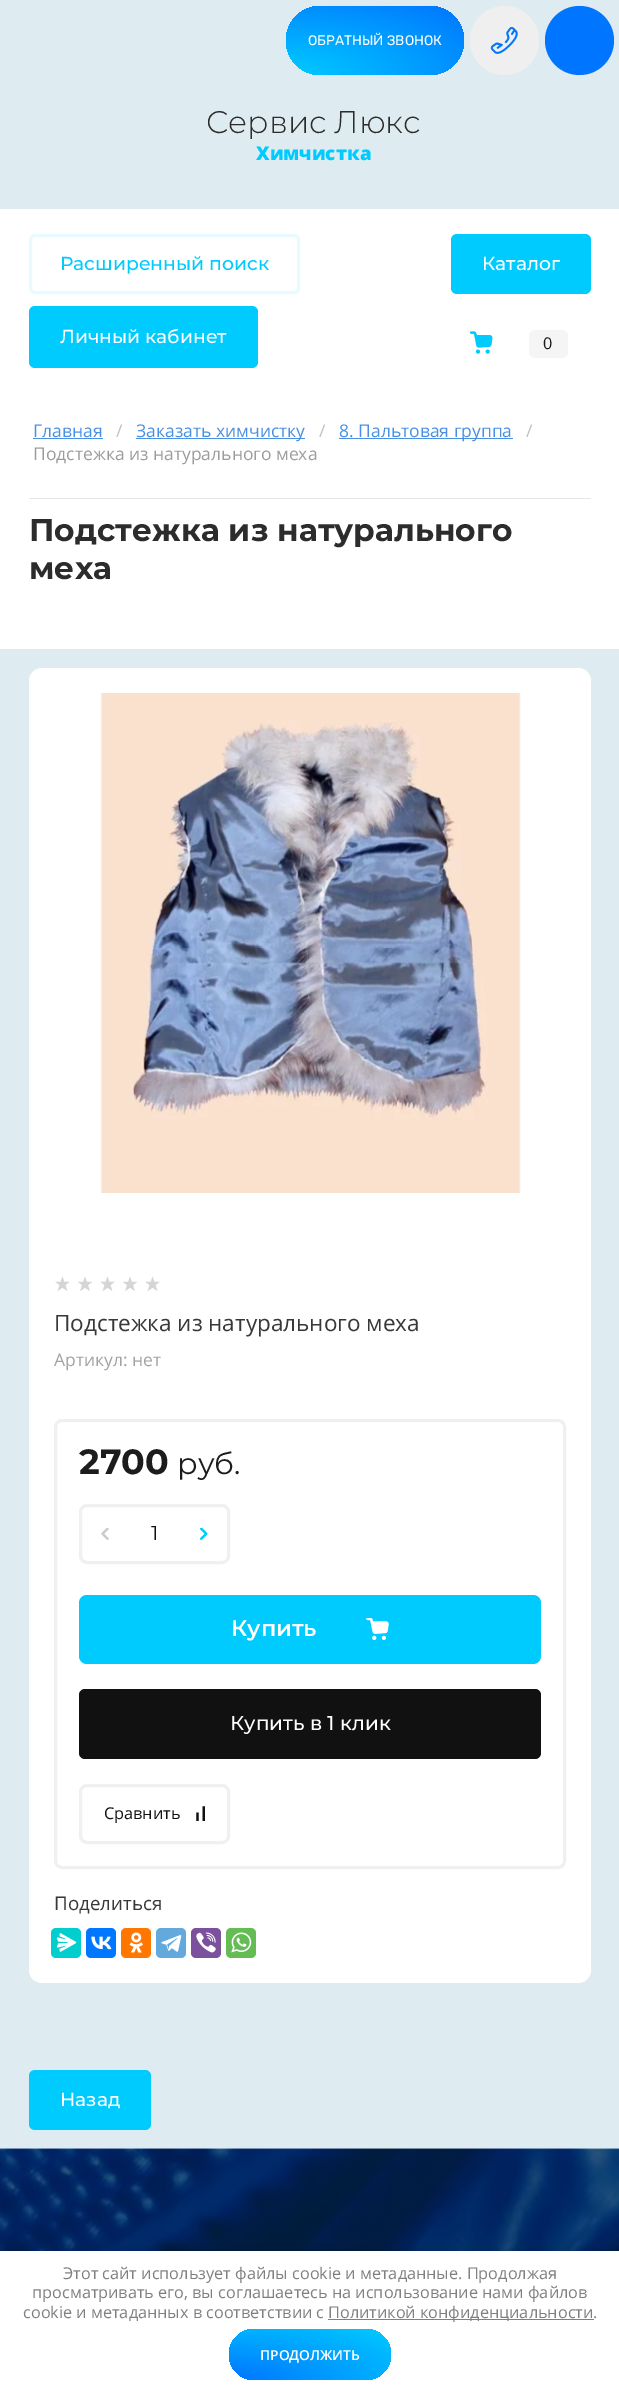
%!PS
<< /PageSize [619 2392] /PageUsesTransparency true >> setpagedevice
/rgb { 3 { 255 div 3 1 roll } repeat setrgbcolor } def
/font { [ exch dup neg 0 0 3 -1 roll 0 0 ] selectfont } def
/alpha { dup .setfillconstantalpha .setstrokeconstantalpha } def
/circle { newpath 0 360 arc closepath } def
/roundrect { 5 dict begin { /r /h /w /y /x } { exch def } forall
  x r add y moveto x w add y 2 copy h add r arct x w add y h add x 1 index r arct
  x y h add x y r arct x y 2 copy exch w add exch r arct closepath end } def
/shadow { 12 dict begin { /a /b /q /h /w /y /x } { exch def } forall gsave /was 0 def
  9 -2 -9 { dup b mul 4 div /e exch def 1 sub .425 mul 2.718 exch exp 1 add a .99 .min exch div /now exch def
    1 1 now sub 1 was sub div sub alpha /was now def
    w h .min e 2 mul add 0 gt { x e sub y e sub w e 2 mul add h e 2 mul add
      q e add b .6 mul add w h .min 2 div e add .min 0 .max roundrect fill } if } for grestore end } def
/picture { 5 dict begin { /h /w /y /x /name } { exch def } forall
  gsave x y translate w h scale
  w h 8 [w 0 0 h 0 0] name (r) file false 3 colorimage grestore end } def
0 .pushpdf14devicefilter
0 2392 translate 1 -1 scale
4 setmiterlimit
255 255 255 rgb
0 0 619 2392 rectfill
222 235 240 rgb
0 0 619 209 rectfill
gsave 286 6 178 69 34.5 roundrect clip newpath 286 75 translate 251 97 scale
<< /ShadingType 3 /ColorSpace /DeviceRGB /Coords [0 0 0 0 0 1] /Extend [true true] /Function << /FunctionType 2 /Domain [0 1] /C0 [0 0.796 1] /C1 [0 0.459 1] /N 1 >> >> shfill grestore
239 239 239 rgb
504.5 40.5 34.5 circle fill
(img/1.rgb) 490 26 28 28 picture
0 117 255 rgb
579.5 40.5 34.5 circle fill
230 250 255 rgb
3 setlinewidth
30.5 235.5 268 57 4.5 roundrect stroke
0 203 255 rgb
451 234 140 60 6 roundrect fill
29 306 229 62 6 roundrect fill
(img/2.rgb) 469 331 24 23 picture
245 245 245 rgb
529 330 39 28 6 roundrect fill
[
  [29 498 562 1 230 230 230]
  [33 438 70 1 74 144 226]
  [136 438 169 1 74 144 226]
  [339 438 174 1 74 144 226]
  [0 649 619 1500 222 235 240]
] { aload pop rgb rectfill } forall
255 255 255 rgb
29 668 562 1315 13 roundrect fill
(img/3.rgb) 100 693 421 500 picture
(img/4.rgb) 55 1276 105 15 picture
240 240 240 rgb
55.5 1420.5 509 447 6.5 roundrect stroke
80.5 1505.5 148 57 6.5 roundrect stroke
(img/5.rgb) 101 1528 8 12 picture
(img/6.rgb) 200 1528 8 12 picture
0 203 255 rgb
79 1595 462 69 8 roundrect fill
(img/7.rgb) 366 1618 23 22 picture
17 17 17 rgb
79 1689 462 70 6 roundrect fill
240 240 240 rgb
80.5 1785.5 148 57 6.5 roundrect stroke
(img/8.rgb) 196 1806 9 15 picture
3 206 206 rgb
51 1928 30 30 5 roundrect fill
(img/9.rgb) 56 1933 21 19 picture
0 119 255 rgb
86 1928 30 30 5 roundrect fill
(img/10.rgb) 91 1936 21 14 picture
255 119 0 rgb
121 1928 30 30 5 roundrect fill
(img/11.rgb) 129 1932 14 21 picture
100 169 220 rgb
156 1928 30 30 5 roundrect fill
(img/12.rgb) 161 1935 21 17 picture
123 81 157 rgb
191 1928 30 30 5 roundrect fill
(img/13.rgb) 196 1932 20 21 picture
101 188 84 rgb
226 1928 30 30 5 roundrect fill
(img/14.rgb) 231 1932 21 21 picture
0 203 255 rgb
29 2070 122 60 6 roundrect fill
(img/15.rgb) 0 2148 619 103 picture
0 0 0 rgb
0 2253 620 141 0 6 0.23 shadow
255 255 255 rgb
0 2251 619 141 rectfill
128 128 128 rgb
328 2319 266 1 rectfill
gsave 229 2329 162 51 25.5 roundrect clip newpath 229 2380 translate 230 72 scale
<< /ShadingType 3 /ColorSpace /DeviceRGB /Coords [0 0 0 0 0 1] /Extend [true true] /Function << /FunctionType 2 /Domain [0 1] /C0 [0 0.459 1] /C1 [0 0.796 1] /N 1 >> >> shfill grestore
/Rubik-Regular 13.75 font
255 255 255 rgb
308 45 moveto (ОБРАТНЫЙ ЗВОНОК) show
/Montserrat-Light 31.25 font
44 44 44 rgb
206 133 moveto (Сервис Люкс) show
/OpenSans-ExtraBold 18.75 font
0 203 255 rgb
256 160 moveto (Химчистка) show
/Montserrat-Medium 18.75 font
60 270 moveto (Расширенный поиск) show
255 255 255 rgb
482 270 moveto (Каталог) show
60 343 moveto (Личный кабинет) show
/OpenSans-Regular 16.25 font
28 28 28 rgb
543 349 moveto (0) show
/OpenSans-Regular 17.5 font
74 144 226 rgb
33 437 moveto (Главная) show
192 192 192 rgb
116 437 moveto (/) show
74 144 226 rgb
136 437 moveto (Заказать химчистку) show
192 192 192 rgb
319 437 moveto (/) show
74 144 226 rgb
339 437 moveto (8. Пальтовая группа) show
192 192 192 rgb
526 437 moveto (/) show
156 156 156 rgb
33 460 moveto (Подстежка из натурального меха) show
/Montserrat-Bold 31.25 font
44 44 44 rgb
29 541 moveto (Подстежка из натурального) show
29 579 moveto (меха) show
/OpenSans-Regular 22.5 font
56 56 56 rgb
54 1331 moveto (Подстежка из натурального меха) show
/OpenSans-Regular 17.5 font
162 162 162 rgb
54 1366 moveto (Артикул: нет) show
/Montserrat-Bold 35 font
28 28 28 rgb
79 1474 moveto (2700) show
/Montserrat-Regular 30 font
177 1474 moveto (руб.) show
/Montserrat-Regular 20 font
17 17 17 rgb
151 1540 moveto (1) show
/Montserrat-SemiBold 22.5 font
255 255 255 rgb
231 1636 moveto (Купить) show
/Montserrat-Medium 20 font
230 1730 moveto (Купить в 1 клик) show
/OpenSans-Regular 16.25 font
17 17 17 rgb
104 1819 moveto (Сравнить) show
/OpenSans-Regular 18.75 font
56 56 56 rgb
54 1910 moveto (Поделиться) show
/Montserrat-Medium 18.75 font
255 255 255 rgb
60 2106 moveto (Назад) show
/OpenSans-Regular 16.25 font
128 128 128 rgb
[
  [(Этот сайт использует файлы cookie и метаданные. Продолжая) 63 2279]
  [(просматривать его, вы соглашаетесь на использование нами файлов) 32 2298]
  [(cookie и метаданных в соответствии с) 23 2318]
  [(Политикой конфиденциальности.) 328 2318]
] { aload pop moveto show } forall
/OpenSans-SemiBold 13.75 font
255 255 255 rgb
260 2360 moveto (ПРОДОЛЖИТЬ) show
.poppdf14devicefilter showpage
